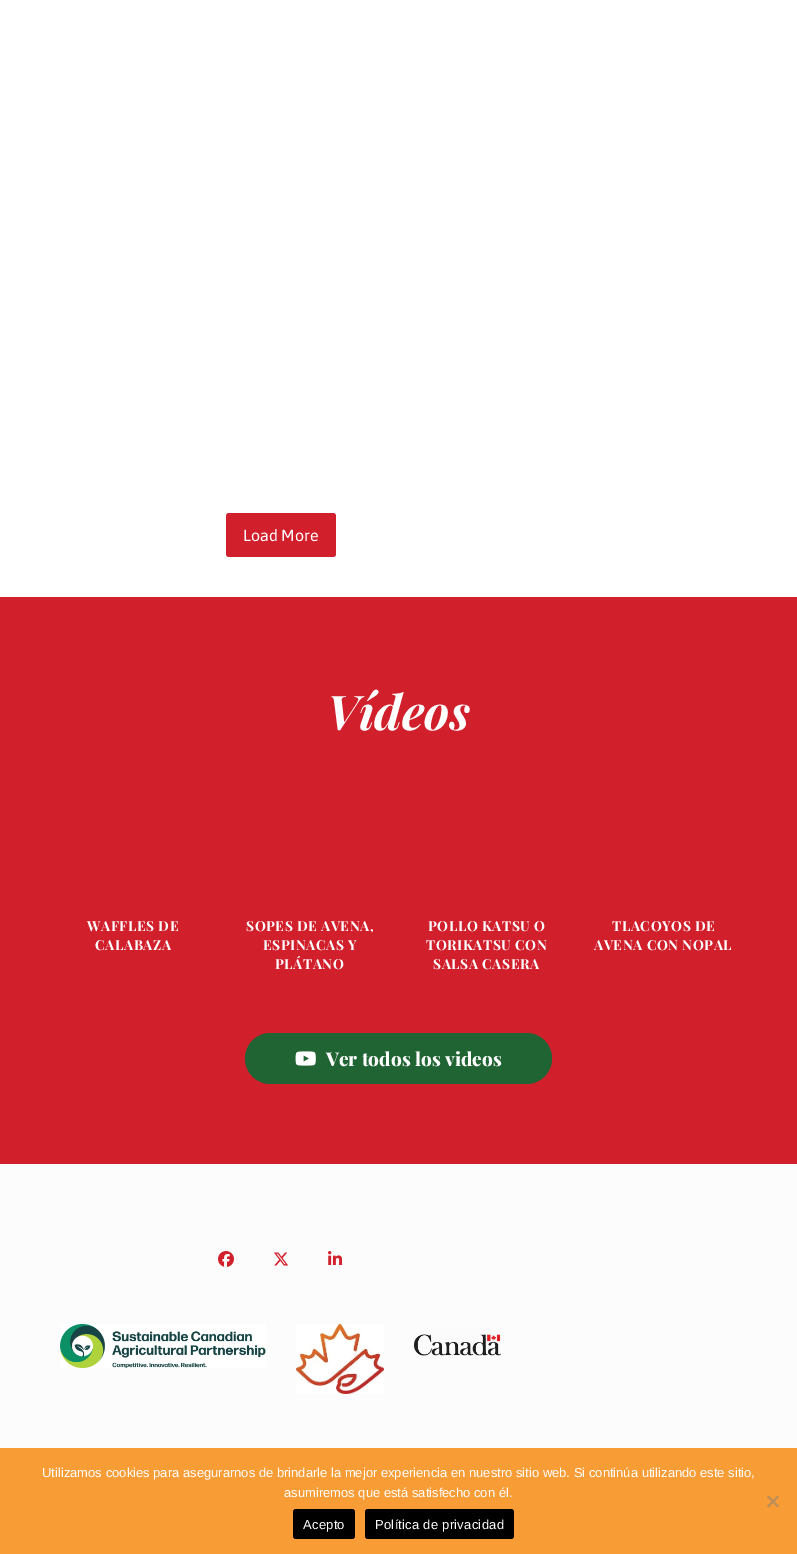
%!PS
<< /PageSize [797 1554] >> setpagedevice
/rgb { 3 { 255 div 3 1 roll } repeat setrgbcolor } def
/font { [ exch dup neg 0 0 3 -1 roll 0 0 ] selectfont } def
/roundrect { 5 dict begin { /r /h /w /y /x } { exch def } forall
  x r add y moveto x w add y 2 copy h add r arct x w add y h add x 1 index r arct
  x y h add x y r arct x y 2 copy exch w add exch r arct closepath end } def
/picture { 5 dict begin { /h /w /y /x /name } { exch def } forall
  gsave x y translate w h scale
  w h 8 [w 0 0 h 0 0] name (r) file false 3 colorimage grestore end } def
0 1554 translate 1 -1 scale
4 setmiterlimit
255 255 255 rgb
0 0 797 1554 rectfill
209 32 44 rgb
226 513 110 44 3 roundrect fill
0 597 797 567 rectfill
31 100 50 rgb
245 1033 307 51 25.5 roundrect fill
(img/1.rgb) 295 1051 21 15 picture
252 252 252 rgb
0 1164 797 284 rectfill
(img/2.rgb) 218 1251 16 16 picture
(img/3.rgb) 274 1252 15 14 picture
(img/4.rgb) 328 1251 14 14 picture
(img/5.rgb) 60 1324 206 44 picture
(img/6.rgb) 296 1324 88 70 picture
(img/7.rgb) 414 1334 87 22 picture
248 156 54 rgb
0 1448 797 106 rectfill
188 142 91 rgb
777.5 1495.5 moveto 779 1497 lineto 768.5 1507.5 lineto 767 1506 lineto closepath fill
767 1497 moveto 768.5 1495.5 lineto 779 1506 lineto 777.5 1507.5 lineto closepath fill
0 0 0 rgb
293 1509 62 30 3 roundrect fill
365 1509 149 30 3 roundrect fill
/Asap-Regular 16 font
255 255 255 rgb
243 541 moveto (Load More) show
/PlayfairDisplay-BoldItalic 48 font
327 730 moveto (Vídeos) show
/PlayfairDisplay-Bold 13.8 font
87 931 moveto 0.5 0 (WAFFLES DE) ashow
95 950 moveto 0.5 0 (CALABAZA) ashow
246 931 moveto 0.5 0 (SOPES DE AVENA,) ashow
263 950 moveto 0.5 0 (ESPINACAS Y) ashow
275 969 moveto 0.5 0 (PLÁTANO) ashow
428 931 moveto 0.5 0 (POLLO KATSU O) ashow
426 950 moveto 0.5 0 (TORIKATSU CON) ashow
433 969 moveto 0.5 0 (SALSA CASERA) ashow
612 931 moveto 0.5 0 (TLACOYOS DE) ashow
594 950 moveto 0.5 0 (AVENA CON NOPAL) ashow
/PlayfairDisplay-ExtraBold 19 font
326 1066 moveto (Ver todos los videos) show
/LiberationSans-Regular 13 font
42 1477 moveto (Utilizamos cookies para asegurarnos de brindarle la mejor experiencia en nuestro sitio web. Si continúa utilizando este sitio,) show
284 1497 moveto (asumiremos que está satisfecho con él.) show
303 1529 moveto 0.25 0 (Acepto) ashow
375 1529 moveto 0.25 0 (Política de privacidad) ashow
showpage
